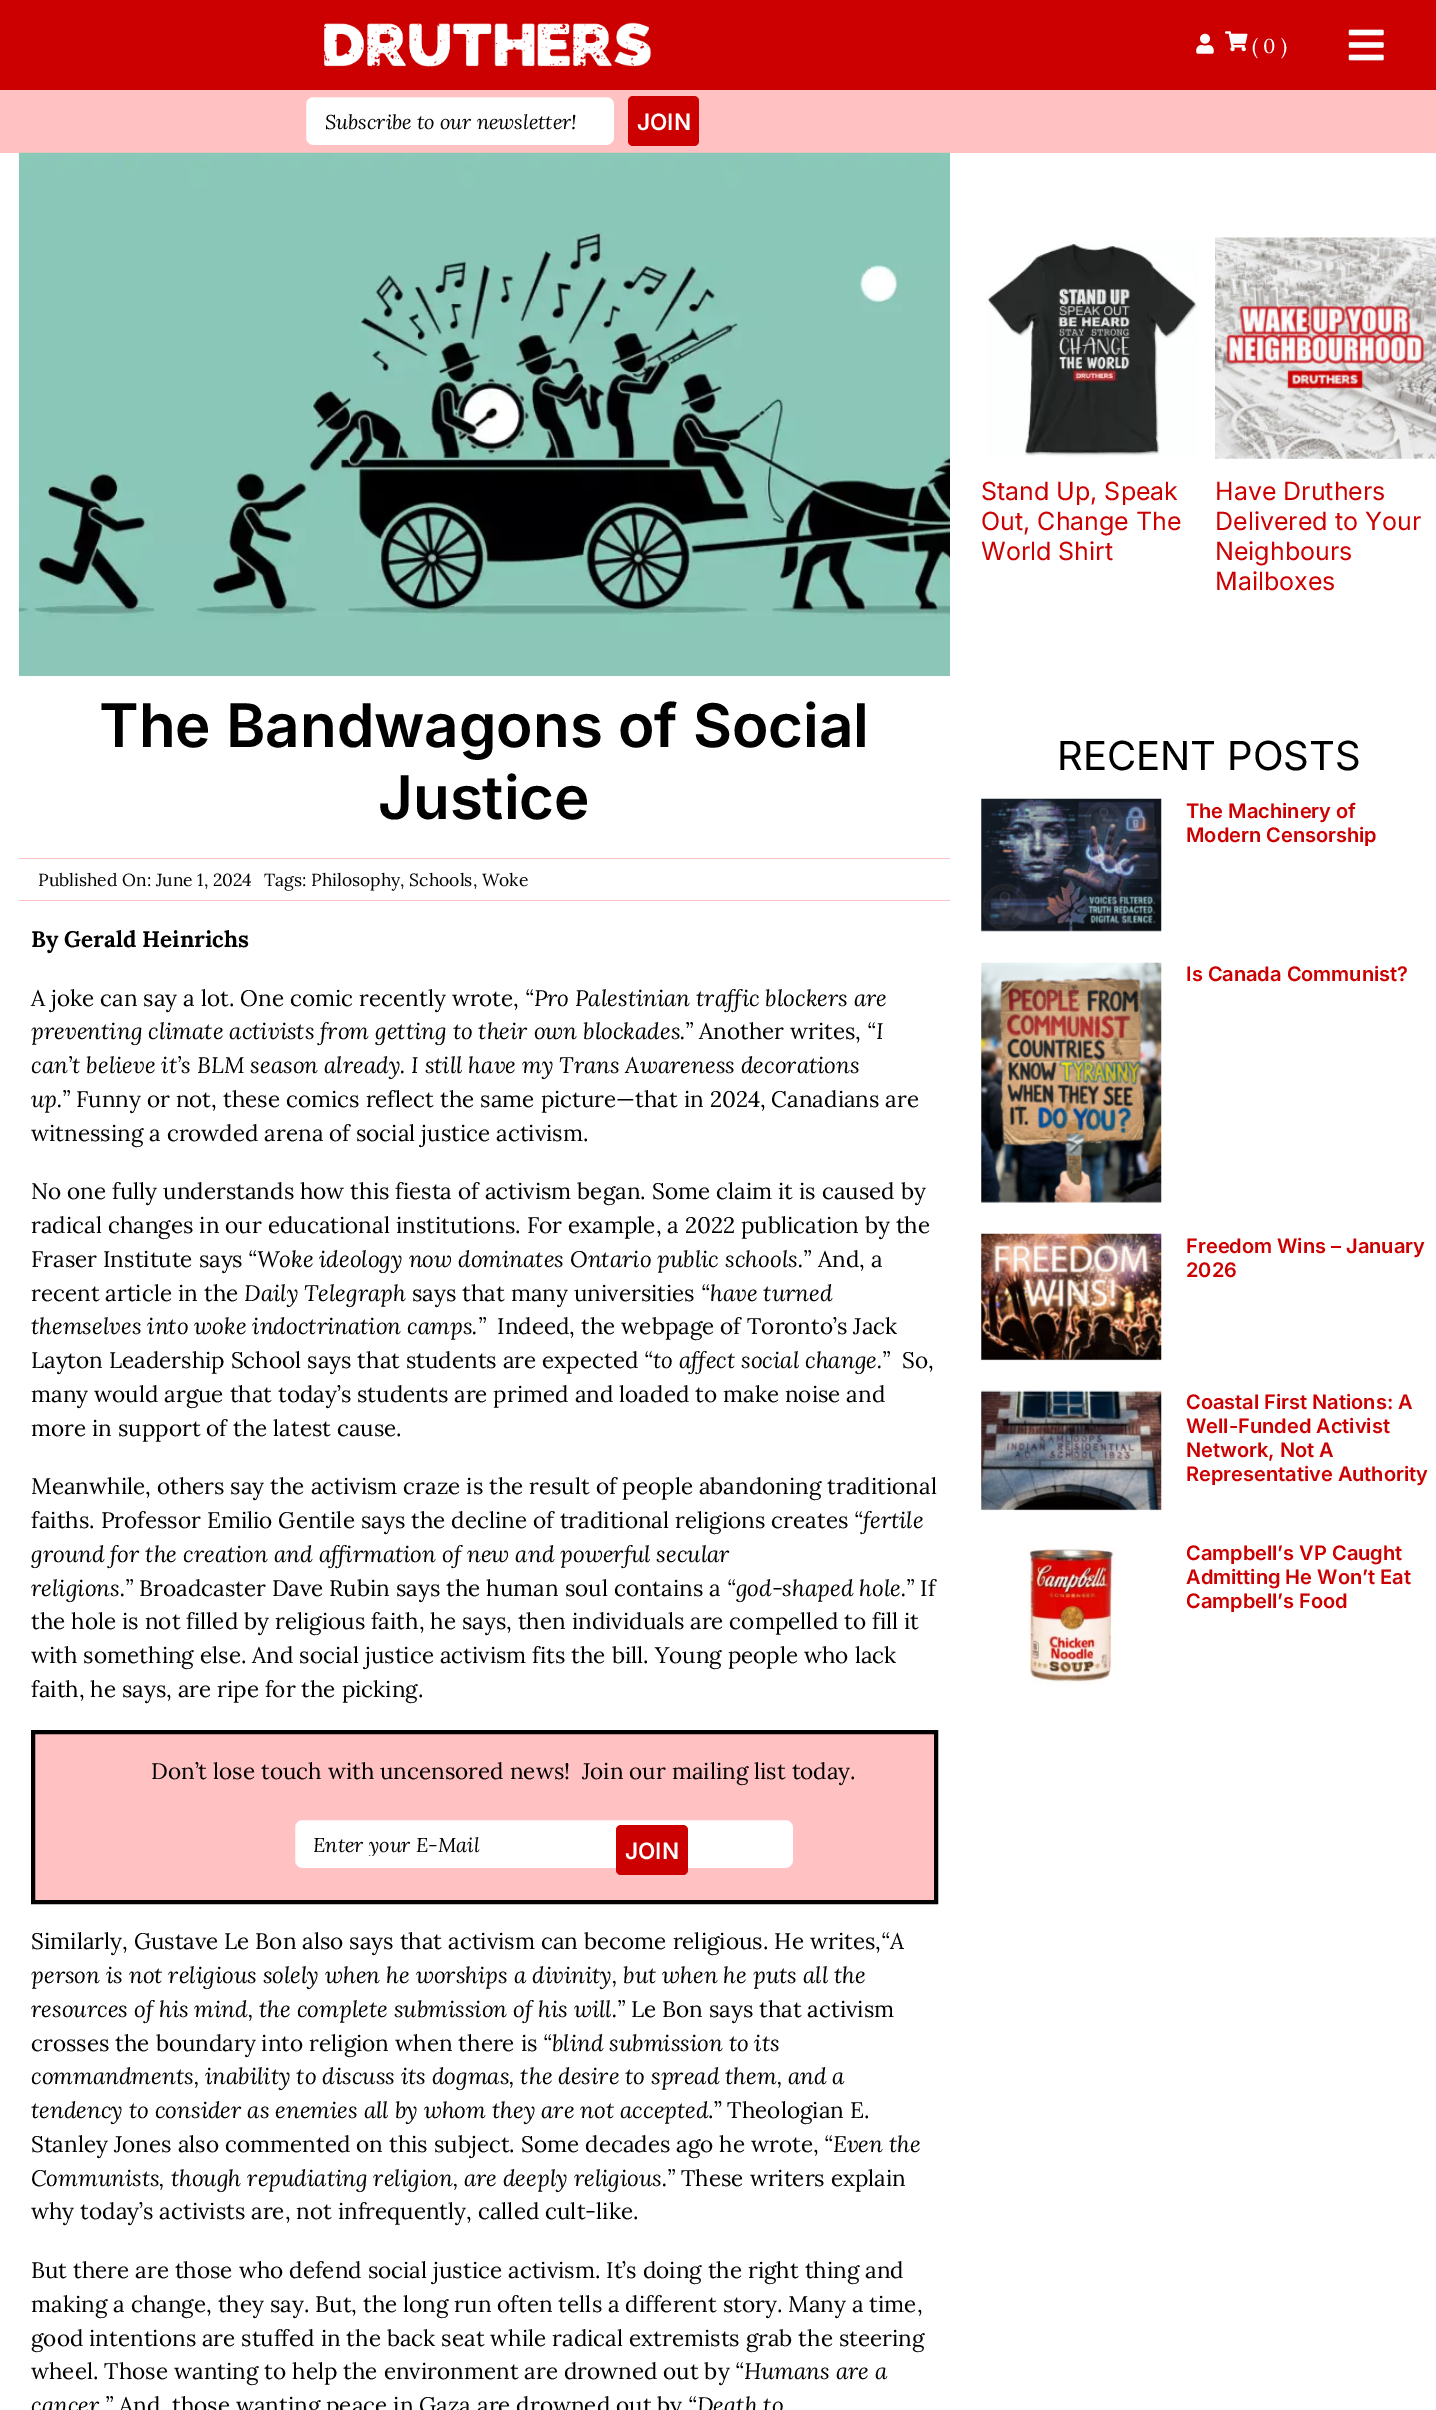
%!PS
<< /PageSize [1436 2410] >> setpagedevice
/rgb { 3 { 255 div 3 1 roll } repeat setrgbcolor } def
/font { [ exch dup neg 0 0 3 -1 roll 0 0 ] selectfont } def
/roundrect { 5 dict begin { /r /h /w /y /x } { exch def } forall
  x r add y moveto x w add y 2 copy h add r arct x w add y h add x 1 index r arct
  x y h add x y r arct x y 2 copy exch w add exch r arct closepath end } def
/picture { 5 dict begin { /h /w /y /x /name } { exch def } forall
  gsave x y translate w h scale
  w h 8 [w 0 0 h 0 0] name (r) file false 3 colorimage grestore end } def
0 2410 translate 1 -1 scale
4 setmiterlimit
255 255 255 rgb
0 0 1436 2410 rectfill
204 0 0 rgb
0 0 1436 90 rectfill
(img/1.rgb) 324 22 328 45 picture
(img/2.rgb) 1196 33 18 21 picture
(img/3.rgb) 1225 31 23 21 picture
(img/4.rgb) 1348 29 36 32 picture
255 193 193 rgb
0 90 1436 63 rectfill
255 255 255 rgb
305.5 96.5 309 49 7.5 roundrect gsave fill grestore
255 193 193 rgb
stroke
204 0 0 rgb
628 96 71 50 5 roundrect fill
(img/5.rgb) 18 152 932 525 picture
255 193 193 rgb
19 858 931 1 rectfill
19 900 931 1 rectfill
33 1732 moveto 936 1732 lineto 936 1902 lineto 33 1902 lineto closepath gsave fill grestore
0 0 0 rgb
4 setlinewidth
stroke
255 255 255 rgb
294.5 1819.5 499 49 7.5 roundrect gsave fill grestore
255 193 193 rgb
1 setlinewidth
stroke
204 0 0 rgb
616 1825 72 50 5 roundrect fill
(img/6.rgb) 986 242 212 215 picture
(img/7.rgb) 1215 237 221 222 picture
(img/8.rgb) 981 798 181 134 picture
(img/9.rgb) 981 962 181 241 picture
(img/10.rgb) 981 1233 181 128 picture
(img/11.rgb) 981 1390 181 121 picture
(img/12.rgb) 1028 1548 88 137 picture
/Lora-Regular 20 font
255 255 255 rgb
1252 53 moveto (\( 0 \)) show
/Lora-Italic 20 font
0 0 0 rgb
325 129 moveto (Subscribe to our newsletter!) show
/Inter-SemiBold 22.5 font
255 255 255 rgb
637 130 moveto (JOIN) show
/Inter-SemiBold 60 font
0 0 0 rgb
99 747 moveto (The Bandwagons of Social) show
378 819 moveto (Justice) show
/Lora-Regular 17.5 font
38 886 moveto (Published On: June 1, 2024) show
264 886 moveto (Tags: Philosophy, Schools, Woke) show
/Lora-Bold 22.5 font
31 947 moveto (By Gerald Heinrichs) show
/Lora-Regular 22.5 font
31 1006 moveto (A joke can say a lot. One comic recently wrote,) show
/Lora-Italic 22.5 font
525 1006 moveto (“Pro Palestinian traffic blockers are) show
31 1039 moveto (preventing climate activists from getting to their own blockades.”) show
/Lora-Regular 22.5 font
699 1039 moveto (Another writes,) show
/Lora-Italic 22.5 font
[
  [(“I) 867 1039]
  [(can’t believe it’s BLM season already. I still have my Trans Awareness decorations) 31 1073]
  [(up.”) 31 1107]
] { aload pop moveto show } forall
/Lora-Regular 22.5 font
[
  [(Funny or not, these comics reflect the same picture—that in 2024, Canadians are) 76 1107]
  [(witnessing a crowded arena of social justice activism.) 31 1141]
  [(No one fully understands how this fiesta of activism began. Some claim it is caused by) 31 1199]
  [(radical changes in our educational institutions. For example, a 2022 publication by the) 31 1233]
  [(Fraser Institute says) 31 1267]
] { aload pop moveto show } forall
/Lora-Italic 22.5 font
248 1267 moveto (“Woke ideology now dominates Ontario public schools.”) show
/Lora-Regular 22.5 font
818 1267 moveto (And, a) show
31 1301 moveto (recent article in the) show
/Lora-Italic 22.5 font
244 1301 moveto (Daily Telegraph) show
/Lora-Regular 22.5 font
412 1301 moveto (says that many universities) show
/Lora-Italic 22.5 font
701 1301 moveto (“have turned) show
31 1334 moveto (themselves into woke indoctrination camps.”) show
/Lora-Regular 22.5 font
497 1334 moveto (Indeed, the webpage of Toronto’s Jack) show
31 1368 moveto (Layton Leadership School says that students are expected) show
/Lora-Italic 22.5 font
644 1368 moveto (“to affect social change.”) show
/Lora-Regular 22.5 font
[
  [(So,) 902 1368]
  [(many would argue that today’s students are primed and loaded to make noise and) 31 1402]
  [(more in support of the latest cause.) 31 1436]
  [(Meanwhile, others say the activism craze is the result of people abandoning traditional) 31 1494]
  [(faiths. Professor Emilio Gentile says the decline of traditional religions creates) 31 1528]
] { aload pop moveto show } forall
/Lora-Italic 22.5 font
[
  [(“fertile) 854 1528]
  [(ground for the creation and affirmation of new and powerful secular) 31 1562]
  [(religions.”) 31 1596]
] { aload pop moveto show } forall
/Lora-Regular 22.5 font
139 1596 moveto (Broadcaster Dave Rubin says the human soul contains a) show
/Lora-Italic 22.5 font
727 1596 moveto (“god-shaped hole.”) show
/Lora-Regular 22.5 font
[
  [(If) 920 1596]
  [(the hole is not filled by religious faith, he says, then individuals are compelled to fill it) 31 1629]
  [(with something else. And social justice activism fits the bill. Young people who lack) 31 1663]
  [(faith, he says, are ripe for the picking.) 31 1697]
  [(Don’t lose touch with uncensored news!  Join our mailing list today.) 151 1779]
] { aload pop moveto show } forall
gsave
314 1831 460 25 rectclip
/Lora-Italic 20 font
313 1852 moveto (Enter your E-Mail) show
grestore
/Inter-SemiBold 22.5 font
255 255 255 rgb
625 1859 moveto (JOIN) show
/Lora-Regular 22.5 font
0 0 0 rgb
31 1949 moveto (Similarly, Gustave Le Bon also says that activism can become religious. He writes,) show
/Lora-Italic 22.5 font
[
  [(“A) 881 1949]
  [(person is not religious solely when he worships a divinity, but when he puts all the) 31 1983]
  [(resources of his mind, the complete submission of his will.”) 31 2017]
] { aload pop moveto show } forall
/Lora-Regular 22.5 font
631 2017 moveto (Le Bon says that activism) show
31 2051 moveto (crosses the boundary into religion when there is) show
/Lora-Italic 22.5 font
[
  [(“blind submission to its) 543 2051]
  [(commandments, inability to discuss its dogmas, the desire to spread them, and a) 31 2084]
  [(tendency to consider as enemies all by whom they are not accepted) 31 2118]
] { aload pop moveto show } forall
/Lora-Regular 22.5 font
708 2118 moveto (.” Theologian E.) show
31 2152 moveto (Stanley Jones also commented on this subject. Some decades ago he wrote,) show
/Lora-Italic 22.5 font
824 2152 moveto (“Even the) show
31 2186 moveto (Communists, though repudiating religion, are deeply religious.”) show
/Lora-Regular 22.5 font
[
  [(These writers explain) 681 2186]
  [(why today’s activists are, not infrequently, called cult-like.) 31 2219]
  [(But there are those who defend social justice activism. It’s doing the right thing and) 31 2278]
  [(making a change, they say. But, the long run often tells a different story. Many a time,) 31 2312]
  [(good intentions are stuffed in the back seat while radical extremists grab the steering) 31 2346]
  [(wheel. Those wanting to help the environment are drowned out by) 31 2379]
] { aload pop moveto show } forall
/Lora-Italic 22.5 font
735 2379 moveto (“Humans are a) show
31 2413 moveto (cancer.”) show
/Lora-Regular 22.5 font
119 2413 moveto (And, those wanting peace in Gaza are drowned out by) show
/Lora-Italic 22.5 font
688 2413 moveto (“Death to) show
/Inter-Regular 25 font
204 0 0 rgb
[
  [(Stand Up, Speak) 981 500]
  [(Out, Change The) 981 530]
  [(World Shirt) 981 560]
  [(Have Druthers) 1215 500]
  [(Delivered to Your) 1215 530]
  [(Neighbours) 1215 560]
  [(Mailboxes) 1215 590]
] { aload pop moveto show } forall
/Inter-Regular 40 font
0 0 0 rgb
1057 770 moveto (RECENT POSTS) show
/Inter-SemiBold 20 font
204 0 0 rgb
[
  [(The Machinery of) 1186 818]
  [(Modern Censorship) 1186 842]
  [(Is Canada Communist?) 1186 981]
  [(Freedom Wins – January) 1186 1253]
  [(2026) 1186 1277]
  [(Coastal First Nations: A) 1186 1409]
  [(Well-Funded Activist) 1186 1433]
  [(Network, Not A) 1186 1457]
  [(Representative Authority) 1186 1481]
  [(Campbell’s VP Caught) 1186 1560]
  [(Admitting He Won’t Eat) 1186 1584]
  [(Campbell’s Food) 1186 1608]
] { aload pop moveto show } forall
showpage
